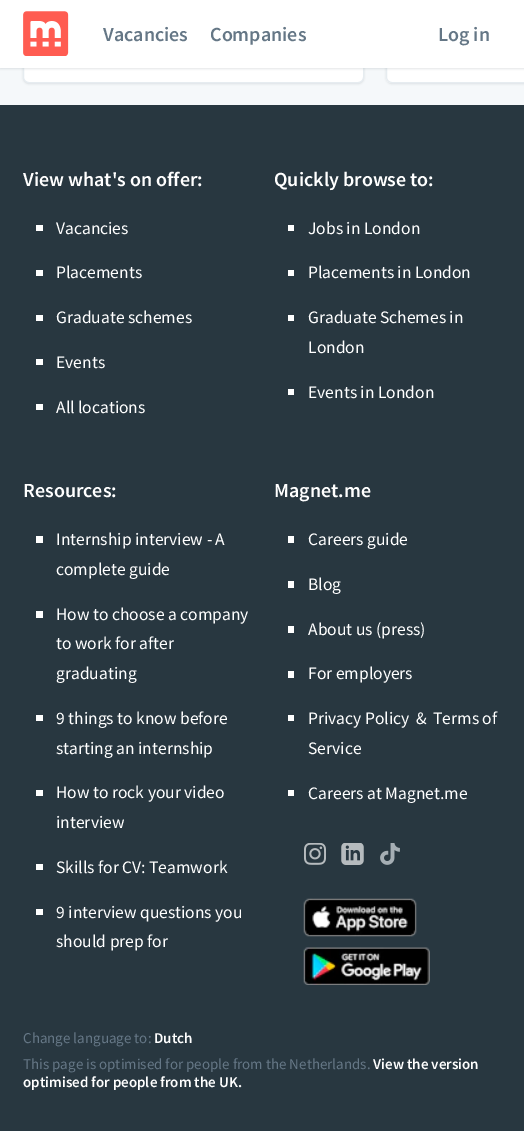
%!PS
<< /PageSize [524 1131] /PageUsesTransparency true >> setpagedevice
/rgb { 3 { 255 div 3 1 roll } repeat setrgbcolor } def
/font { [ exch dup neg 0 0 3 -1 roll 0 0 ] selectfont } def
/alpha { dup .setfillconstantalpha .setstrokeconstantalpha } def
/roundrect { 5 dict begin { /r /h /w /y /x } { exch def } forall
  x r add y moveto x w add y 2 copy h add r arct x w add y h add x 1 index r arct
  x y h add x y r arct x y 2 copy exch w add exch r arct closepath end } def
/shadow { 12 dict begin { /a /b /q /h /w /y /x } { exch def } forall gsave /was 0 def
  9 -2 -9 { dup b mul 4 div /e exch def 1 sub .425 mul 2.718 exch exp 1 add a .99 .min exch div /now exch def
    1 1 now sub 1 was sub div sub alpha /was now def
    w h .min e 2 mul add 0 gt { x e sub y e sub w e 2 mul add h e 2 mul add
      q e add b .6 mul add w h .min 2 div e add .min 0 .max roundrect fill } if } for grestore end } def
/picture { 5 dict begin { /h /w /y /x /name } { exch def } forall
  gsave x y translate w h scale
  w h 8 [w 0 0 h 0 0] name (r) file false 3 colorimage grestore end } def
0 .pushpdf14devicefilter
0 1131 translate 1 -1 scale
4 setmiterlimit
245 248 250 rgb
0 0 524 1131 rectfill
40 55 64 rgb
23 -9 341 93 6 1 0.12 shadow
255 255 255 rgb
23.5 -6.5 340 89 5.5 roundrect gsave fill grestore
230 236 240 rgb
stroke
40 55 64 rgb
386 -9 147 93 6 1 0.12 shadow
255 255 255 rgb
392 -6 moveto 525 -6 lineto 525 83 lineto 392 83 lineto 388.5 83 386 80.5 386 77 curveto 386 0 lineto 386 -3.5 388.5 -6 392 -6 curveto closepath fill
230 236 240 rgb
386.5 -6.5 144 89 5.5 roundrect stroke
40 55 64 rgb
0 1 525 68 0 1 0.12 shadow
255 255 255 rgb
0 0 524 68 rectfill
(img/1.rgb) 23 11 46 45 picture
[
  [0 105 524 1026 40 55 64]
  [36 225 7 6 255 255 255]
  [36 270 7 6 255 255 255]
  [36 315 7 6 255 255 255]
  [36 359 7 6 255 255 255]
  [36 404 7 6 255 255 255]
  [288 225 6 6 255 255 255]
  [288 270 6 6 255 255 255]
  [288 315 6 6 255 255 255]
  [288 389 6 6 255 255 255]
  [36 536 7 7 255 255 255]
  [36 611 7 7 255 255 255]
  [36 715 7 6 255 255 255]
  [36 790 7 6 255 255 255]
  [36 864 7 6 255 255 255]
  [36 909 7 6 255 255 255]
  [288 536 6 7 255 255 255]
  [288 581 6 7 255 255 255]
  [288 626 6 7 255 255 255]
  [288 671 6 7 255 255 255]
  [288 715 6 6 255 255 255]
  [288 790 6 6 255 255 255]
] { aload pop rgb rectfill } forall
(img/2.rgb) 304 843 22 22 picture
(img/3.rgb) 341 843 23 22 picture
(img/4.rgb) 380 843 20 22 picture
(img/5.rgb) 303 898 114 39 picture
(img/6.rgb) 303 947 127 38 picture
/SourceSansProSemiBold-SemiBold 20 font
101 119 134 rgb
[
  [(Vacancies) 103 41]
  [(Companies) 210 41]
  [(Log in) 438 41]
] { aload pop moveto show } forall
255 255 255 rgb
23 186 moveto (View what's on offer:) show
/SourceSansPro-Regular 17.5 font
[
  [(Vacancies) 56 234]
  [(Placements) 56 278]
  [(Graduate schemes) 56 323]
  [(Events) 56 368]
  [(All locations) 56 413]
] { aload pop moveto show } forall
/SourceSansProSemiBold-SemiBold 20 font
274 186 moveto (Quickly browse to:) show
/SourceSansPro-Regular 17.5 font
[
  [(Jobs in London) 308 234]
  [(Placements in London) 308 278]
  [(Graduate Schemes in) 308 323]
  [(London) 308 353]
  [(Events in London) 308 398]
] { aload pop moveto show } forall
/SourceSansProSemiBold-SemiBold 20 font
23 497 moveto (Resources:) show
/SourceSansPro-Regular 17.5 font
[
  [(Internship interview - A) 56 545]
  [(complete guide) 56 575]
  [(How to choose a company) 56 620]
  [(to work for after) 56 649]
  [(graduating) 56 679]
  [(9 things to know before) 56 724]
  [(starting an internship) 56 754]
  [(How to rock your video) 56 798]
  [(interview) 56 828]
  [(Skills for CV: Teamwork) 56 873]
  [(9 interview questions you) 56 918]
  [(should prep for) 56 947]
] { aload pop moveto show } forall
/SourceSansProSemiBold-SemiBold 20 font
274 497 moveto (Magnet.me) show
/SourceSansPro-Regular 17.5 font
[
  [(Careers guide) 308 545]
  [(Blog) 308 590]
  [(About us \(press\)) 308 635]
  [(For employers) 308 679]
  [(Privacy Policy) 308 724]
  [(&) 416 724]
  [(Terms of) 433 724]
  [(Service) 308 754]
  [(Careers at Magnet.me) 308 799]
] { aload pop moveto show } forall
/SourceSansPro-Regular 15 font
101 119 134 rgb
23 1043 moveto (Change language to:) show
/SourceSansProSemiBold-SemiBold 15 font
255 255 255 rgb
154 1043 moveto (Dutch) show
/SourceSansPro-Regular 15 font
101 119 134 rgb
23 1069 moveto (This page is optimised for people from the Netherlands.) show
/SourceSansProSemiBold-SemiBold 15 font
255 255 255 rgb
373 1069 moveto (View the version) show
23 1087 moveto (optimised for people from the UK.) show
.poppdf14devicefilter showpage
